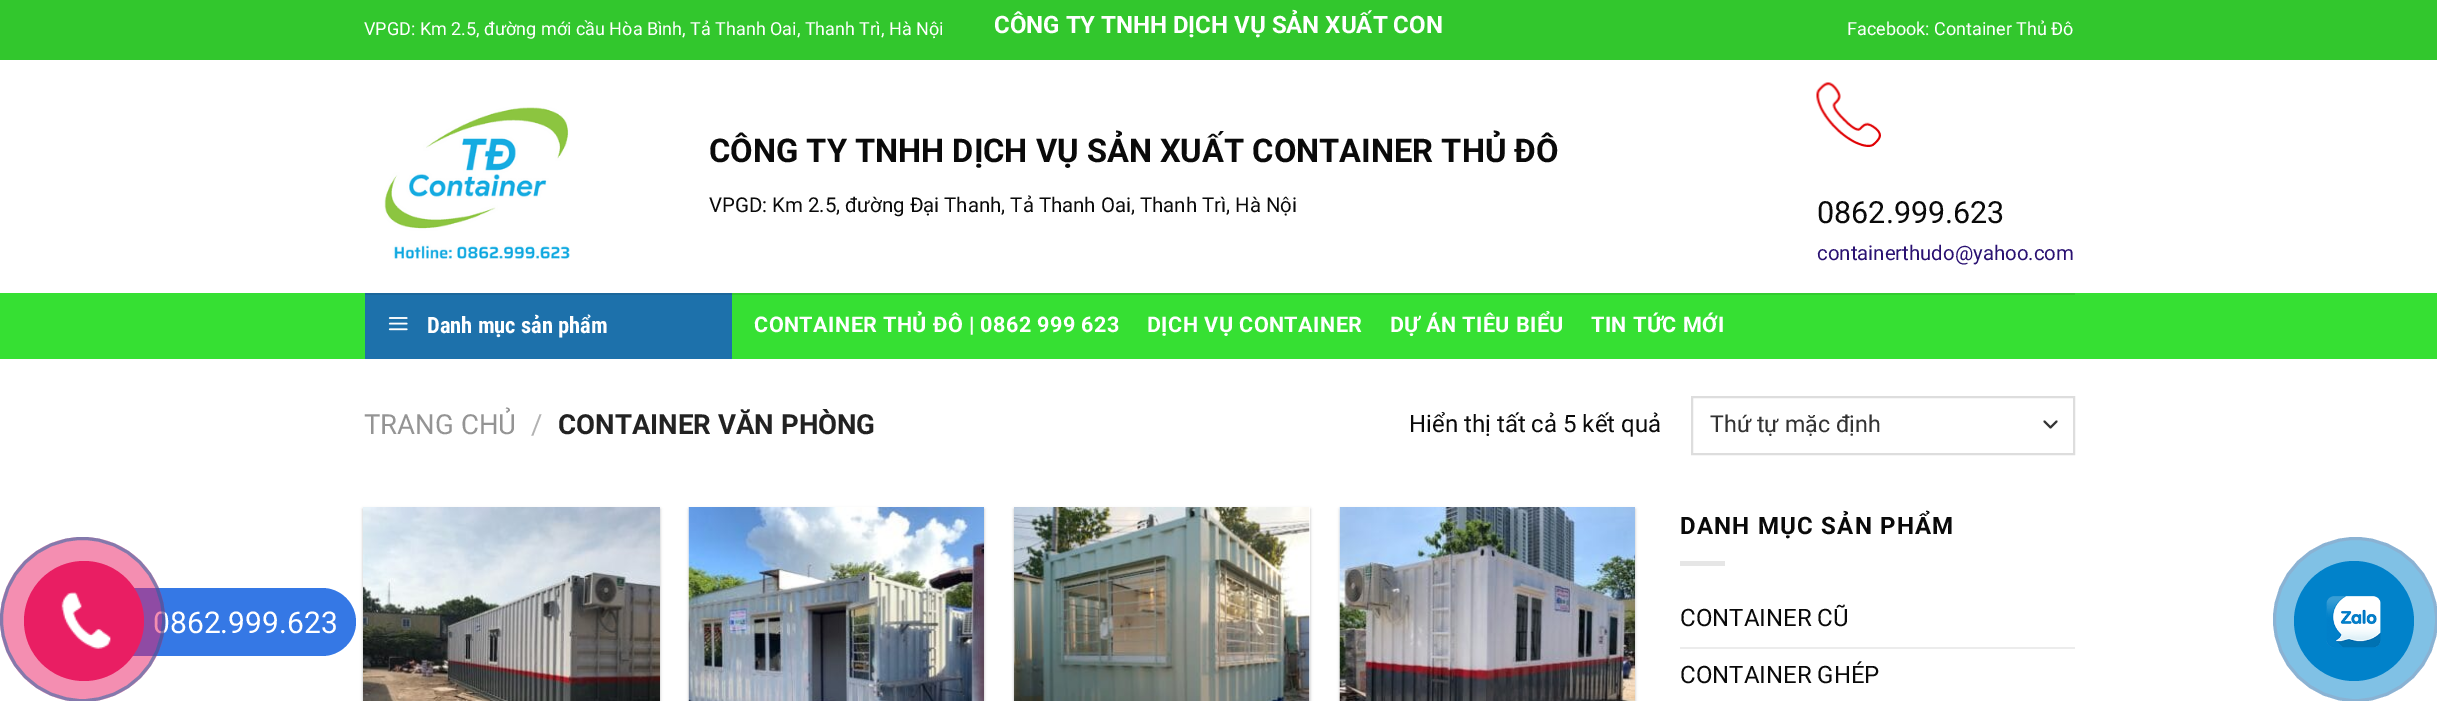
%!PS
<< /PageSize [2437 701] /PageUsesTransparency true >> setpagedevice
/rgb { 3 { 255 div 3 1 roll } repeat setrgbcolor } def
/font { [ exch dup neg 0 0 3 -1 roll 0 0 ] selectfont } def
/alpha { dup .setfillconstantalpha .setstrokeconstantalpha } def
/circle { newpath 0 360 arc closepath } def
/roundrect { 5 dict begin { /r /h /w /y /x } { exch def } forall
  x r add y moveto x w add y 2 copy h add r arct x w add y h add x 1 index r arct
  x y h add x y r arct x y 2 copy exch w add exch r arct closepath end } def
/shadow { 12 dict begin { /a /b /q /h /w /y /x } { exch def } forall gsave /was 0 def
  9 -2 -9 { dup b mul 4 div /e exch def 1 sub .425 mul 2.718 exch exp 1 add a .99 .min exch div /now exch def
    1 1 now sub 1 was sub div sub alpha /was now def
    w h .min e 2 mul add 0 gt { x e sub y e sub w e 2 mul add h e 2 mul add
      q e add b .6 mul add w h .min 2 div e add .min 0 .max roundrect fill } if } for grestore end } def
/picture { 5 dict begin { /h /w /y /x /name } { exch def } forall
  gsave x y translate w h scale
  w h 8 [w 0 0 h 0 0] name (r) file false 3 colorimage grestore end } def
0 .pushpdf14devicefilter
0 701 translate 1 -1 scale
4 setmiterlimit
255 255 255 rgb
0 0 2437 701 rectfill
53 120 229 rgb
78 588 278 68 34 roundrect fill
50 199 45 rgb
0 0 2437 60 rectfill
(img/2.rgb) 384 107 186 152 picture
(img/3.rgb) 1816 82 65 65 picture
[
  [0 293 2437 66 54 224 51]
  [732 293 1343 2 50 203 47]
  [365 295 367 64 29 113 171]
  [365 293 367 2 27 103 155]
] { aload pop rgb rectfill } forall
(img/4.rgb) 388 317 20 14 picture
51 51 51 rgb
2 setlinewidth
1 setlinecap
1 setlinejoin
2044.5 421.5 moveto 2050.5 427.5 lineto 2056.5 421.5 lineto stroke
221 221 221 rgb
0 setlinecap
0 setlinejoin
1692 397 382 57 rectstroke
0 0 0 rgb
363 509 297 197 0 1.5 0.24 shadow
(img/5.rgb) 363 507 297 194 picture
689 509 295 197 0 1.5 0.24 shadow
(img/6.rgb) 688 507 296 194 picture
1014 509 296 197 0 1.5 0.24 shadow
255 255 255 rgb
1309 507 1 194 rectfill
(img/7.rgb) 1014 507 296 194 picture
0 0 0 rgb
1340 509 295 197 0 1.5 0.24 shadow
(img/8.rgb) 1339 507 296 194 picture
230 230 230 rgb
1680 561 45 5 rectfill
236 236 236 rgb
1680 647 395 2 rectfill
128 193 229 rgb
2355.5 619.5 81 circle gsave fill grestore
138 178 211 rgb
3 setlinewidth
stroke
1 130 202 rgb
2354 621 60 circle fill
(img/9.rgb) 2326 596 55 52 picture
/Roboto-Regular 30 font
255 255 255 rgb
153 633 moveto (0862.999.623) show
0.5 alpha
233 30 99 rgb
82.5 619.5 82.5 circle fill
21 100 167 rgb
82.5 619.5 81 circle stroke
1 alpha
233 30 99 rgb
84 621 60 circle fill
(img/1.rgb) 61 592 50 57 picture
/Roboto-Regular 18 font
255 255 255 rgb
364 35 moveto (VPGD: Km 2.5, đường mới cầu Hòa Bình, Tả Thanh Oai, Thanh Trì, Hà Nội) show
gsave
995 6 450 39 rectclip
/Roboto-Bold 24 font
994 33 moveto (CÔNG TY TNHH DỊCH VỤ SẢN XUẤT CON) show
grestore
1847 35 moveto (Facebook: Container Thủ Đô) show
/Roboto-Bold 32.65 font
10 10 10 rgb
709 162 moveto (CÔNG TY TNHH DỊCH VỤ SẢN XUẤT CONTAINER THỦ ĐÔ) show
/Roboto-Regular 20.4 font
709 212 moveto (VPGD: Km 2.5, đường Đại Thanh, Tả Thanh Oai, Thanh Trì, Hà Nội) show
/Roboto-Regular 30.5 font
1817 223 moveto (0862.999.623) show
/Roboto-Regular 20.4 font
41 16 113 rgb
1817 260 moveto (containerthudo@yahoo.com) show
/RobotoCondensed-Bold 22.5 font
255 255 255 rgb
427 333 moveto (Danh mục sản phẩm) show
/Roboto-Bold 21.6 font
754 332 moveto 0.4 0 (CONTAINER THỦ ĐÔ | 0862 999 623) ashow
1147 332 moveto 0.4 0 (DỊCH VỤ CONTAINER) ashow
1390 332 moveto 0.4 0 (DỰ ÁN TIÊU BIỂU) ashow
1591 332 moveto 0.4 0 (TIN TỨC MỚI) ashow
/Roboto-Regular 27.6 font
148 148 148 rgb
364 434 moveto (TRANG CHỦ) show
178 178 178 rgb
531 434 moveto (/) show
/Roboto-Bold 27.6 font
34 34 34 rgb
558 434 moveto (CONTAINER VĂN PHÒNG) show
/Roboto-Regular 24 font
10 10 10 rgb
1409 432 moveto (Hiển thị tất cả 5 kết quả) show
/Roboto-Regular 23.25 font
51 51 51 rgb
1710 432 moveto (Thứ tự mặc định) show
/Roboto-Bold 24 font
10 10 10 rgb
1680 534 moveto 1.25 0 (DANH MỤC SẢN PHẨM) ashow
/Roboto-Regular 24 font
1680 626 moveto (CONTAINER CŨ) show
1680 683 moveto (CONTAINER GHÉP) show
.poppdf14devicefilter showpage
